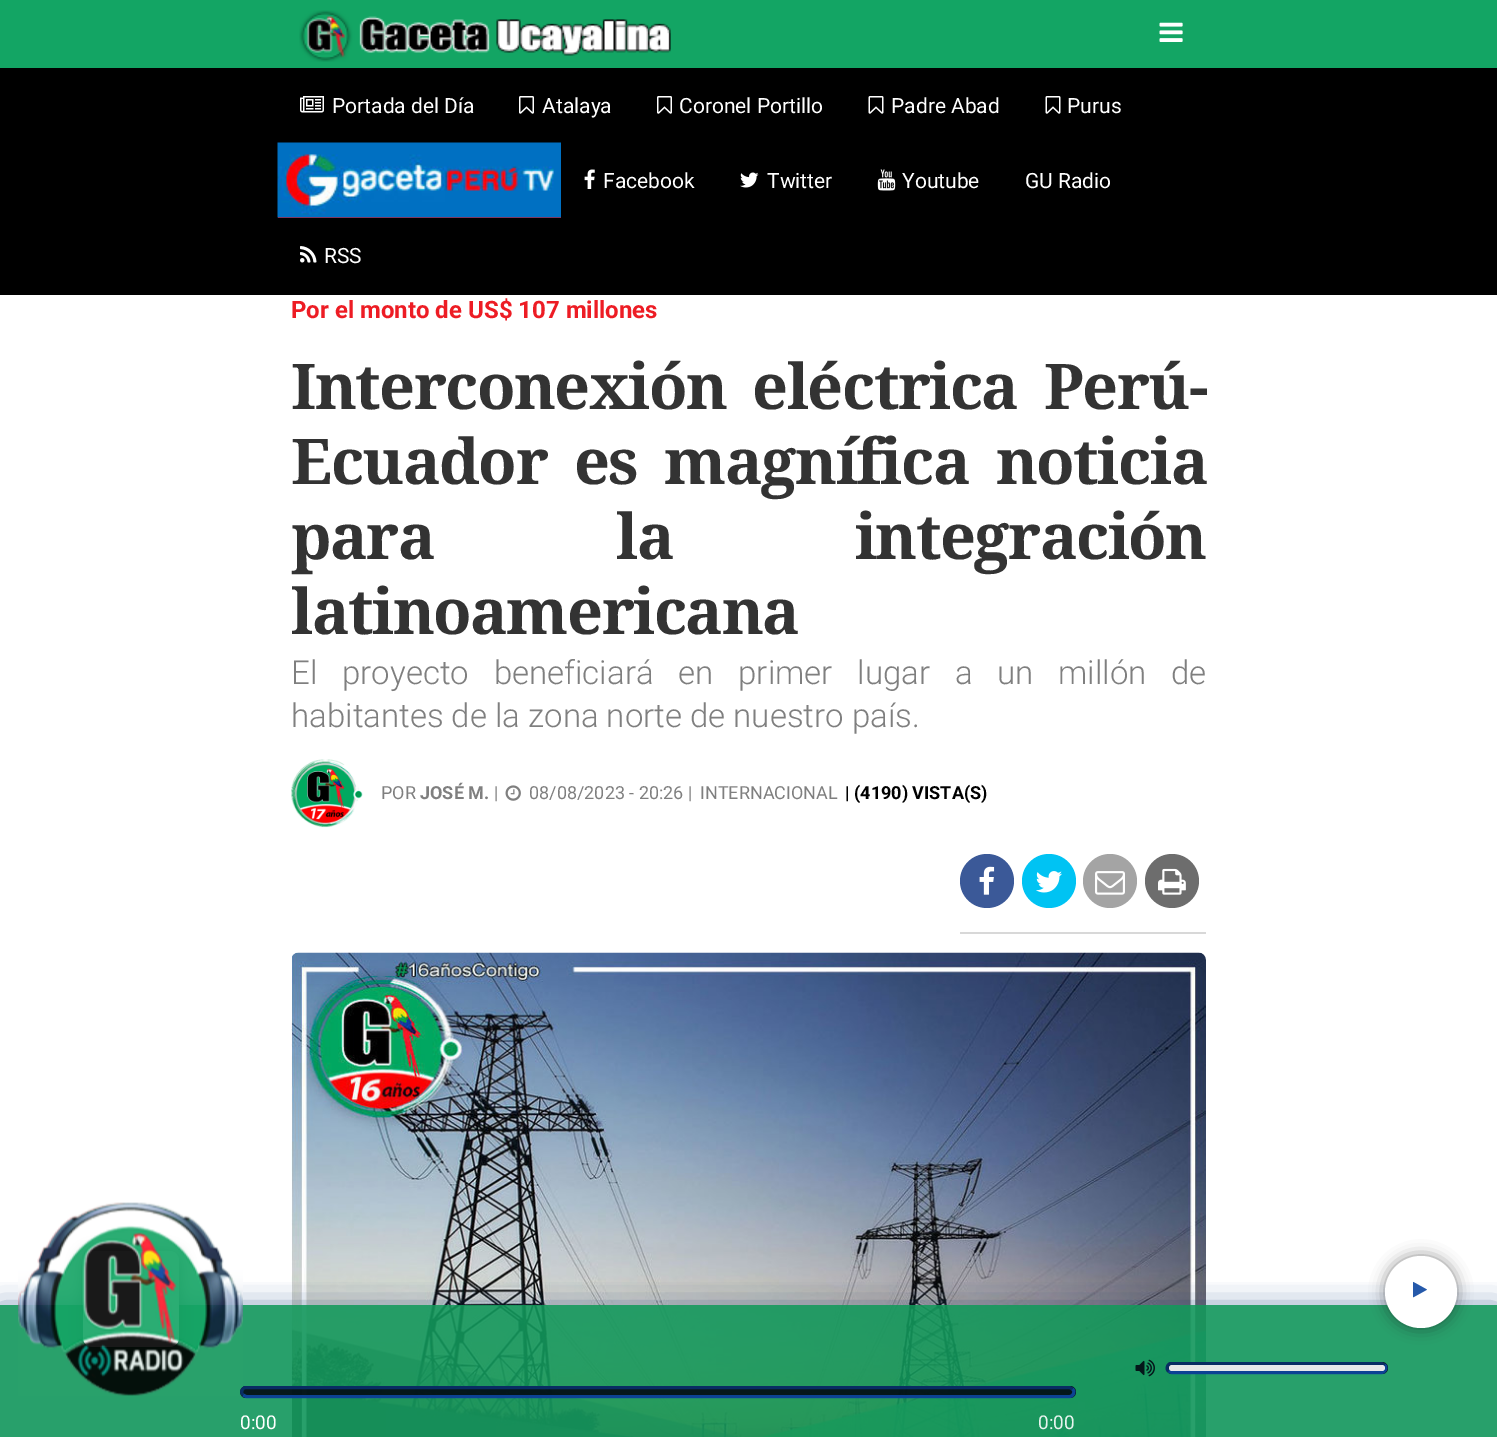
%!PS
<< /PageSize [1497 1437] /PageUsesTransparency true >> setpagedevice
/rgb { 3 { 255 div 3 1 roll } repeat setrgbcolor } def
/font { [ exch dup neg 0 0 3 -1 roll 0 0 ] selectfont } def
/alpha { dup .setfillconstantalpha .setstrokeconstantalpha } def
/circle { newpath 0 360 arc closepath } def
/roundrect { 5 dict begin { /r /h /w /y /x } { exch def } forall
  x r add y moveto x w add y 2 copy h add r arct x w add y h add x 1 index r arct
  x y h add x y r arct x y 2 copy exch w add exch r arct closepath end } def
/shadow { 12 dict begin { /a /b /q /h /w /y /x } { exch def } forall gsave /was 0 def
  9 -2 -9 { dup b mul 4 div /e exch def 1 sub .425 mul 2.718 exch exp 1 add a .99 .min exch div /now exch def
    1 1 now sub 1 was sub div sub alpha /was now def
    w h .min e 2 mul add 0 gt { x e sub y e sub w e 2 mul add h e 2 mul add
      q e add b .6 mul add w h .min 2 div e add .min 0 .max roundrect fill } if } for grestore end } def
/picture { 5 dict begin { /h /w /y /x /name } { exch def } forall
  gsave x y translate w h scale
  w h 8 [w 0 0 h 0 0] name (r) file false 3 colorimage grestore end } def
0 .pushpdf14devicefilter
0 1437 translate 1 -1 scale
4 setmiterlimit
255 255 255 rgb
0 0 1497 1437 rectfill
19 165 100 rgb
0 0 1497 68 rectfill
(img/1.rgb) 299 10 372 52 picture
(img/2.rgb) 1159 22 24 20 picture
0 0 0 rgb
0 68 1497 227 rectfill
(img/3.rgb) 300 96 24 17 picture
(img/4.rgb) 519 96 15 18 picture
(img/4.rgb) 657 96 15 18 picture
(img/5.rgb) 868 96 16 18 picture
(img/5.rgb) 1045 96 16 18 picture
255 0 0 rgb
278 217 283 1 rectfill
(img/6.rgb) 277 142 284 76 picture
(img/7.rgb) 584 169 11 20 picture
(img/8.rgb) 740 172 19 16 picture
(img/9.rgb) 877 169 19 22 picture
(img/10.rgb) 300 246 17 17 picture
(img/11.rgb) 291 759 72 69 picture
(img/12.rgb) 505 785 16 16 picture
216 216 216 rgb
960 932 246 2 rectfill
59 89 152 rgb
987 881 27 circle fill
(img/13.rgb) 979 866 16 29 picture
0 195 243 rgb
1049 881 27 circle fill
(img/14.rgb) 1036 871 26 22 picture
164 164 164 rgb
1110 881 27 circle fill
(img/15.rgb) 1095 871 30 24 picture
109 109 109 rgb
1172 881 27 circle fill
(img/16.rgb) 1158 868 28 27 picture
(img/17.rgb) 291 952 915 485 picture
gsave
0 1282 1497 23 rectclip
9 50 114 rgb
0 1311 1497 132 0 15 0.72 shadow
grestore
0.9 alpha
17 150 91 rgb
0 1305 1497 132 rectfill
1 alpha
26 26 26 rgb
83 1254 96 96 9 7.5 0.5 shadow
255 255 255 rgb
83 1251 96 96 9 roundrect fill
0.9 alpha
2 9 19 rgb
240 1386 836 12 6 roundrect fill
13 71 161 rgb
3 setlinewidth
1072.5 1389 moveto 1075.5 1391.5 1073.5 1396.5 1069.5 1396.5 curveto 246 1396.5 lineto 243 1395 lineto stroke
9 47 107 rgb
243 1395 moveto 240 1392.5 242 1387.5 246 1387.5 curveto 1069.5 1387.5 lineto 1072.5 1389 lineto stroke
1 alpha
(img/18.rgb) 18 1202 225 194 picture
26 26 26 rgb
1385 1256 72 72 36 7.5 0.5 shadow
255 255 255 rgb
1421 1292 36 circle fill
(img/19.rgb) 1413 1281 14 17 picture
(img/20.rgb) 1135 1359 20 18 picture
0.9 alpha
2 9 19 rgb
1166 1362 222 12 6 roundrect fill
13 71 161 rgb
1384.5 1365 moveto 1386 1366 1386.5 1368 1385.5 1369.5 curveto 1385 1371.5 1383.5 1372.5 1381.5 1372.5 curveto 1171.5 1372.5 lineto 1168.5 1371 lineto stroke
9 47 107 rgb
1168.5 1371 moveto 1167 1370 1166.5 1368 1167.5 1366.5 curveto 1168 1364.5 1169.5 1363.5 1171.5 1363.5 curveto 1381.5 1363.5 lineto 1384.5 1365 lineto stroke
255 255 255 rgb
1169 1365 216 6 3 roundrect fill
/Roboto-Regular 21 font
1 alpha
[
  [(Portada del Día) 332 113]
  [(Atalaya) 542 113]
  [(Coronel Portillo) 679 113]
  [(Padre Abad) 891 113]
  [(Purus) 1067 113]
  [(Facebook) 603 188]
  [(Twitter) 767 188]
  [(Youtube) 902 188]
  [(GU Radio) 1025 188]
  [(RSS) 324 263]
] { aload pop moveto show } forall
/Roboto-Bold 24 font
237 28 36 rgb
291 318 moveto (Por el monto de US$ 107 millones) show
/DroidSerif-Bold 63 font
51 51 51 rgb
291 409 moveto 11 0 32 -1.5 0 (Interconexión eléctrica Perú-) awidthshow
291 484 moveto 12 0 32 -1.5 0 (Ecuador es magnífica noticia) awidthshow
291 559 moveto 167 0 32 -1.5 0 (para la integración) awidthshow
291 634 moveto -1.5 0 (latinoamericana) ashow
/Roboto-Light 33 font
127 127 127 rgb
291 684 moveto 16.75 0 32 (El proyecto beneficiará en primer lugar a un millón de) widthshow
291 727 moveto (habitantes de la zona norte de nuestro país.) show
/Roboto-Regular 18 font
381 799 moveto (POR) show
/Roboto-Bold 18 font
420 799 moveto (JOSÉ M.) show
/Roboto-Regular 18 font
[
  [(|) 494 799]
  [(08/08/2023 - 20:26 |) 529 799]
  [(INTERNACIONAL) 700 799]
] { aload pop moveto show } forall
/Roboto-Bold 18 font
0 0 0 rgb
845 799 moveto (| \(4190\) VISTA\(S\)) show
/Roboto-Regular 19 font
255 255 255 rgb
240 1429 moveto (0:00) show
232 244 239 rgb
1038 1429 moveto (0:00) show
.poppdf14devicefilter showpage
